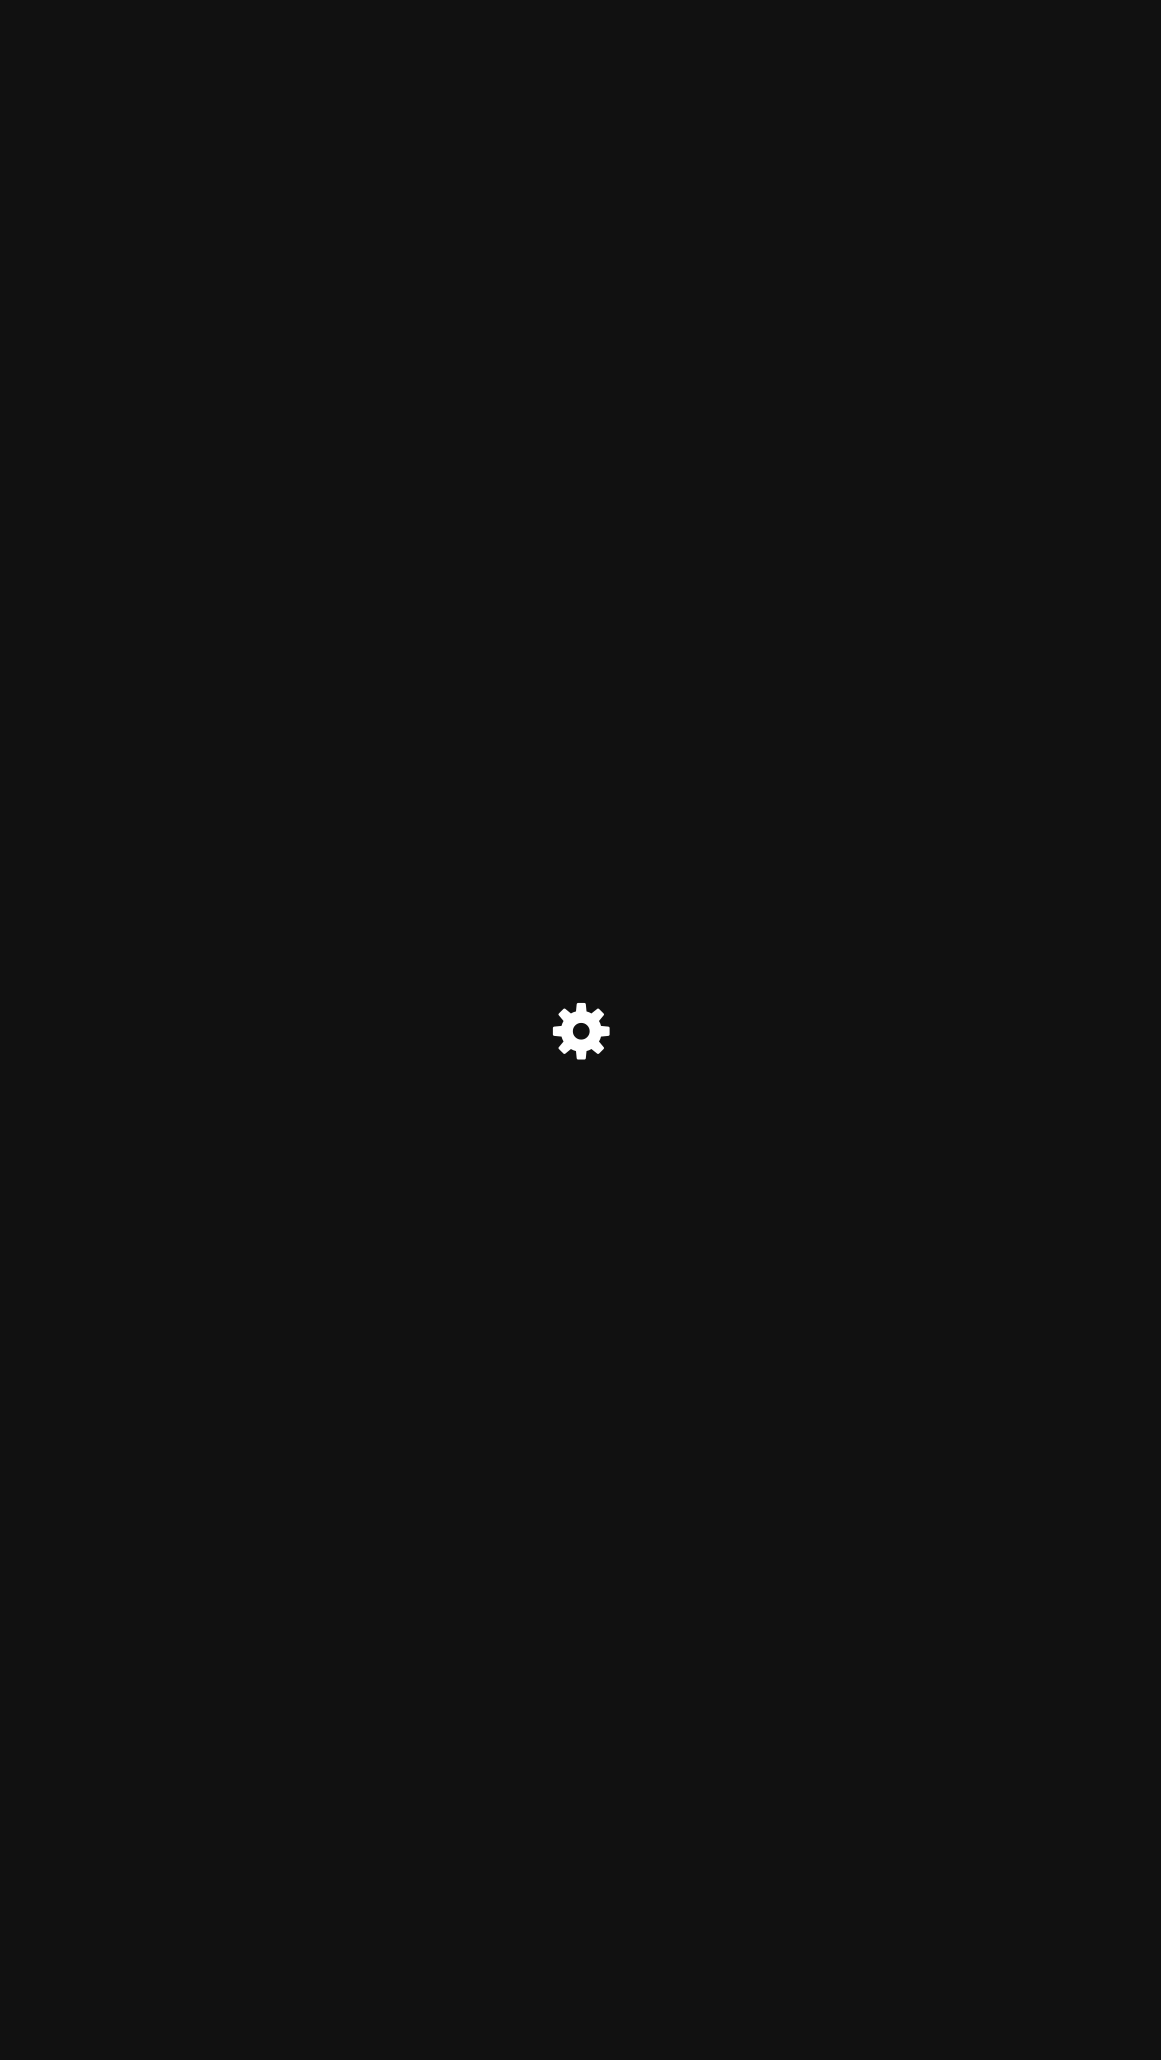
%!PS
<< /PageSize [1161 2060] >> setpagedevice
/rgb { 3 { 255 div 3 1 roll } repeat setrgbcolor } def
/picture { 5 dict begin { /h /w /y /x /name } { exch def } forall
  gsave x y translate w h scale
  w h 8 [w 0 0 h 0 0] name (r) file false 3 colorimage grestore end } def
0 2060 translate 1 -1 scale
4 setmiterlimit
17 17 17 rgb
0 0 1161 2060 rectfill
(img/1.rgb) 552 1002 58 58 picture
showpage
